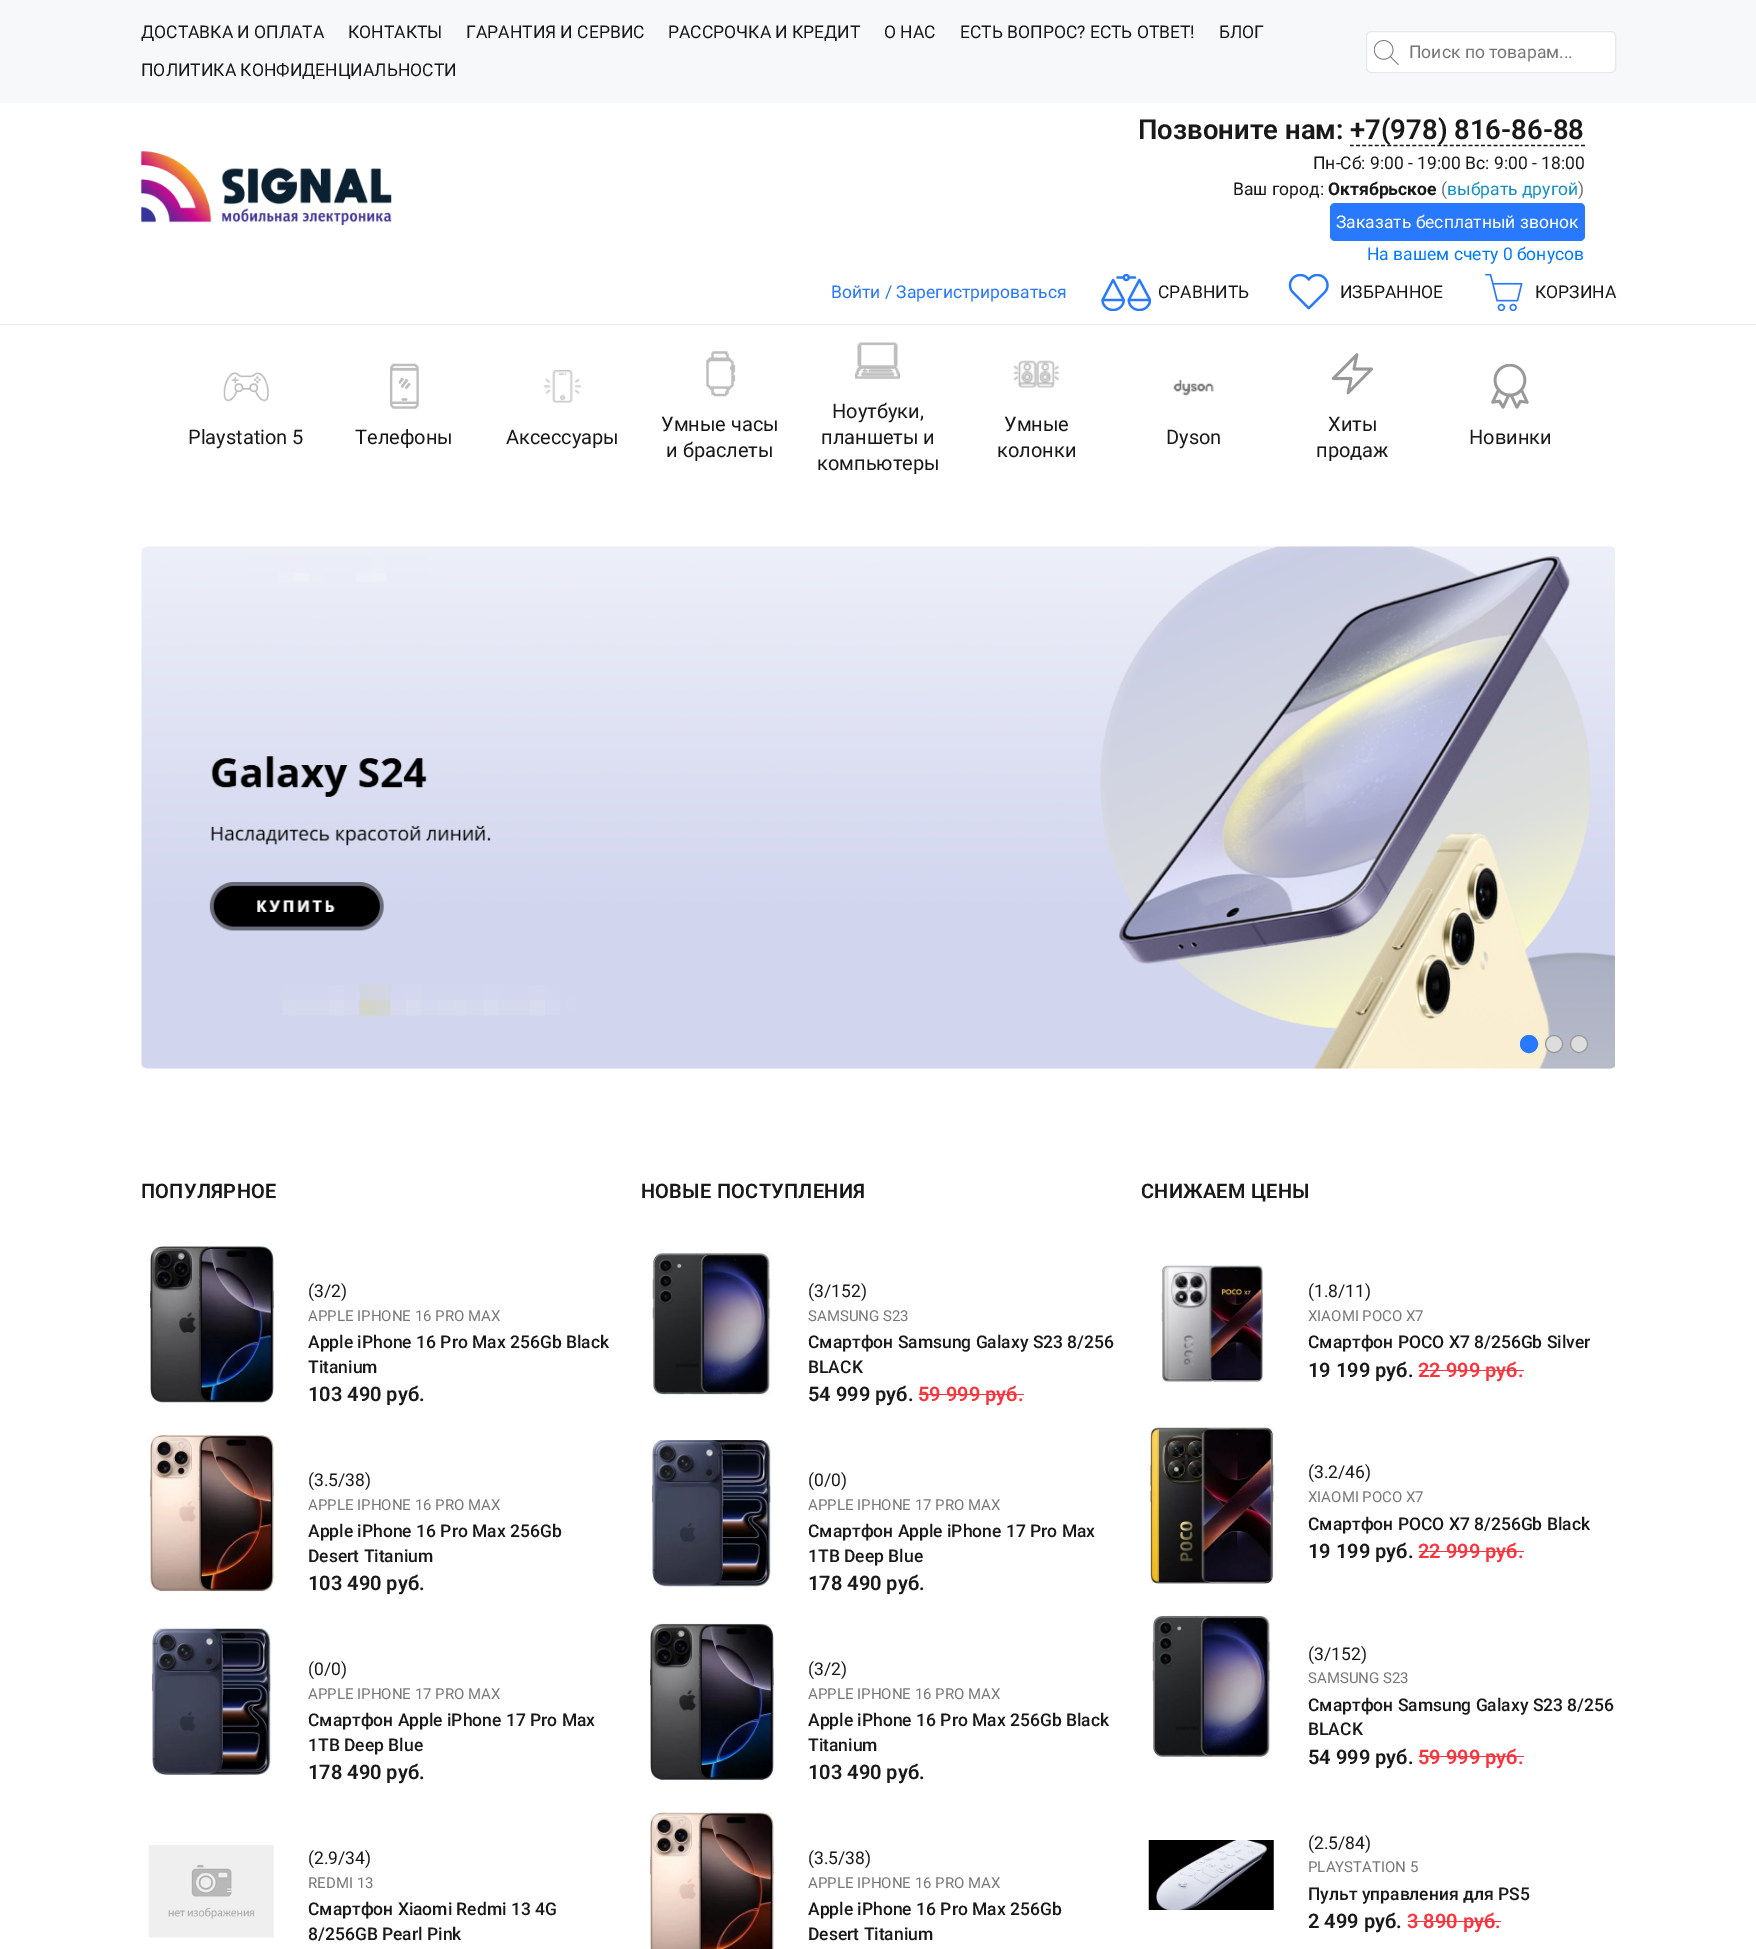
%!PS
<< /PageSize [1756 1949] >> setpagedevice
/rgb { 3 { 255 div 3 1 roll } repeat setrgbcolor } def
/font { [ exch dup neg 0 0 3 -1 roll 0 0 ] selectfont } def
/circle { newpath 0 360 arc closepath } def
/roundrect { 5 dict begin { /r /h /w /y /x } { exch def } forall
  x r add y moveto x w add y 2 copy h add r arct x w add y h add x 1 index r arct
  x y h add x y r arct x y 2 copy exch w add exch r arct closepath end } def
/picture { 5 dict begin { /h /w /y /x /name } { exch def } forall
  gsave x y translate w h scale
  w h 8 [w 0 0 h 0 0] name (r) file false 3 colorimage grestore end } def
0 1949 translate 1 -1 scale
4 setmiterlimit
255 255 255 rgb
0 0 1756 1949 rectfill
247 248 250 rgb
0 0 1756 103 rectfill
255 255 255 rgb
1366.5 31.5 249 41 4.5 roundrect gsave fill grestore
233 231 231 rgb
stroke
(img/1.rgb) 1374 40 25 25 picture
0 324 1756 1 rectfill
(img/2.rgb) 141 151 251 74 picture
25 25 25 rgb
1.2 setlinewidth
[3.75 2.5] 0 setdash
1350 145.5 moveto 1585 145.5 lineto stroke
40 121 254 rgb
1330 203 255 38 5 roundrect fill
(img/3.rgb) 1101 274 50 37 picture
(img/4.rgb) 1288 274 41 36 picture
(img/5.rgb) 1485 274 38 37 picture
(img/6.rgb) 223 372 46 30 picture
(img/7.rgb) 390 363 29 46 picture
(img/8.rgb) 543 369 39 34 picture
(img/9.rgb) 706 351 30 46 picture
(img/10.rgb) 855 342 45 37 picture
(img/11.rgb) 1013 360 46 28 picture
(img/12.rgb) 1173 379 41 17 picture
(img/13.rgb) 1331 353 42 42 picture
(img/14.rgb) 1491 364 38 45 picture
(img/15.rgb) 141 546 1474 523 picture
1529 1044 8.5 circle gsave fill grestore
1 setlinewidth
[] 0 setdash
stroke
221 221 221 rgb
1554 1044 8.5 circle gsave fill grestore
153 152 152 rgb
stroke
221 221 221 rgb
1579 1044 8.5 circle gsave fill grestore
153 152 152 rgb
stroke
(img/16.rgb) 150 1246 124 157 picture
(img/17.rgb) 150 1435 124 157 picture
(img/18.rgb) 151 1628 121 147 picture
(img/19.rgb) 148 1845 126 93 picture
(img/20.rgb) 652 1252 119 143 picture
248 53 62 rgb
919 1394 105 1 rectfill
(img/21.rgb) 651 1440 121 147 picture
(img/22.rgb) 650 1623 124 157 picture
(img/23.rgb) 650 1812 124 137 picture
(img/24.rgb) 1161 1264 102 119 picture
1419 1370 105 1 rectfill
(img/25.rgb) 1150 1427 124 157 picture
1419 1551 105 1 rectfill
(img/26.rgb) 1152 1615 119 143 picture
1419 1756 105 1 rectfill
(img/27.rgb) 1148 1840 126 70 picture
1408 1921 93 1 rectfill
/Roboto-Regular 17.5 font
25 25 25 rgb
[
  [(ДОСТАВКА И ОПЛАТА) 141 38]
  [(КОНТАКТЫ) 348 38]
  [(ГАРАНТИЯ И СЕРВИС) 466 38]
  [(РАССРОЧКА И КРЕДИТ) 668 38]
  [(О НАС) 884 38]
  [(ЕСТЬ ВОПРОС? ЕСТЬ ОТВЕТ!) 960 38]
  [(БЛОГ) 1219 38]
  [(ПОЛИТИКА КОНФИДЕНЦИАЛЬНОСТИ) 141 76]
] { aload pop moveto show } forall
119 119 119 rgb
1409 58 moveto (Поиск по товарам...) show
/Roboto-SemiBold 27.5 font
25 25 25 rgb
1138 139 moveto (Позвоните нам:) show
1350 139 moveto (+7\(978\) 816-86-88) show
/Roboto-Regular 17.5 font
1313 169 moveto (Пн-Сб: 9:00 - 19:00 Вс: 9:00 - 18:00) show
1233 195 moveto (Ваш город:) show
/Roboto-Bold 17.5 font
1328 195 moveto (Октябрьское) show
/Roboto-Regular 17.5 font
111 110 110 rgb
1441 195 moveto (\() show
19 145 199 rgb
1447 195 moveto (выбрать другой) show
111 110 110 rgb
1578 195 moveto (\)) show
255 255 255 rgb
1336 228 moveto (Заказать бесплатный звонок) show
0 123 255 rgb
1367 260 moveto (На вашем счету 0 бонусов) show
40 121 254 rgb
831 298 moveto (Войти / Зарегистрироваться) show
25 25 25 rgb
[
  [(СРАВНИТЬ) 1158 298]
  [(ИЗБРАННОЕ) 1340 298]
  [(КОРЗИНА) 1535 298]
] { aload pop moveto show } forall
/Roboto-Regular 20 font
[
  [(Playstation 5) 188 444]
  [(Телефоны) 355 444]
  [(Аксессуары) 506 444]
  [(Умные часы) 661 431]
  [(и браслеты) 666 457]
  [(Ноутбуки,) 832 418]
  [(планшеты и) 821 444]
  [(компьютеры) 817 470]
  [(Умные) 1004 431]
  [(колонки) 997 457]
  [(Dyson) 1166 444]
  [(Хиты) 1328 431]
  [(продаж) 1316 457]
  [(Новинки) 1469 444]
] { aload pop moveto show } forall
/Roboto-SemiBold 20 font
141 1198 moveto 0.25 0 (ПОПУЛЯРНОЕ) ashow
/Roboto-Regular 17.5 font
308 1297 moveto (\(3/2\)) show
/Roboto-Regular 15 font
119 119 119 rgb
308 1321 moveto (APPLE IPHONE 16 PRO MAX) show
/Roboto-Medium 17.5 font
25 25 25 rgb
308 1348 moveto (Apple iPhone 16 Pro Max 256Gb Black) show
308 1373 moveto (Titanium) show
/Roboto-SemiBold 20 font
308 1401 moveto (103 490 руб.) show
/Roboto-Regular 17.5 font
308 1486 moveto (\(3.5/38\)) show
/Roboto-Regular 15 font
119 119 119 rgb
308 1510 moveto (APPLE IPHONE 16 PRO MAX) show
/Roboto-Medium 17.5 font
25 25 25 rgb
308 1537 moveto (Apple iPhone 16 Pro Max 256Gb) show
308 1562 moveto (Desert Titanium) show
/Roboto-SemiBold 20 font
308 1590 moveto (103 490 руб.) show
/Roboto-Regular 17.5 font
308 1675 moveto (\(0/0\)) show
/Roboto-Regular 15 font
119 119 119 rgb
308 1699 moveto (APPLE IPHONE 17 PRO MAX) show
/Roboto-Medium 17.5 font
25 25 25 rgb
308 1726 moveto (Смартфон Apple iPhone 17 Pro Max) show
308 1751 moveto (1TB Deep Blue) show
/Roboto-SemiBold 20 font
308 1779 moveto (178 490 руб.) show
/Roboto-Regular 17.5 font
308 1864 moveto (\(2.9/34\)) show
/Roboto-Regular 15 font
119 119 119 rgb
308 1888 moveto (REDMI 13) show
/Roboto-Medium 17.5 font
25 25 25 rgb
308 1915 moveto (Смартфон Xiaomi Redmi 13 4G) show
308 1940 moveto (8/256GB Pearl Pink) show
/Roboto-SemiBold 20 font
641 1198 moveto 0.25 0 (НОВЫЕ ПОСТУПЛЕНИЯ) ashow
/Roboto-Regular 17.5 font
808 1297 moveto (\(3/152\)) show
/Roboto-Regular 15 font
119 119 119 rgb
808 1321 moveto (SAMSUNG S23) show
/Roboto-Medium 17.5 font
25 25 25 rgb
808 1348 moveto (Смартфон Samsung Galaxy S23 8/256) show
808 1373 moveto (BLACK) show
/Roboto-SemiBold 20 font
808 1401 moveto (54 999 руб.) show
248 53 62 rgb
918 1401 moveto (59 999 руб.) show
/Roboto-Regular 17.5 font
25 25 25 rgb
808 1486 moveto (\(0/0\)) show
/Roboto-Regular 15 font
119 119 119 rgb
808 1510 moveto (APPLE IPHONE 17 PRO MAX) show
/Roboto-Medium 17.5 font
25 25 25 rgb
808 1537 moveto (Смартфон Apple iPhone 17 Pro Max) show
808 1562 moveto (1TB Deep Blue) show
/Roboto-SemiBold 20 font
808 1590 moveto (178 490 руб.) show
/Roboto-Regular 17.5 font
808 1675 moveto (\(3/2\)) show
/Roboto-Regular 15 font
119 119 119 rgb
808 1699 moveto (APPLE IPHONE 16 PRO MAX) show
/Roboto-Medium 17.5 font
25 25 25 rgb
808 1726 moveto (Apple iPhone 16 Pro Max 256Gb Black) show
808 1751 moveto (Titanium) show
/Roboto-SemiBold 20 font
808 1779 moveto (103 490 руб.) show
/Roboto-Regular 17.5 font
808 1864 moveto (\(3.5/38\)) show
/Roboto-Regular 15 font
119 119 119 rgb
808 1888 moveto (APPLE IPHONE 16 PRO MAX) show
/Roboto-Medium 17.5 font
25 25 25 rgb
808 1915 moveto (Apple iPhone 16 Pro Max 256Gb) show
808 1940 moveto (Desert Titanium) show
/Roboto-SemiBold 20 font
1141 1198 moveto 0.25 0 (СНИЖАЕМ ЦЕНЫ) ashow
/Roboto-Regular 17.5 font
1308 1297 moveto (\(1.8/11\)) show
/Roboto-Regular 15 font
119 119 119 rgb
1308 1321 moveto (XIAOMI POCO X7) show
/Roboto-Medium 17.5 font
25 25 25 rgb
1308 1348 moveto (Смартфон POCO X7 8/256Gb Silver) show
/Roboto-SemiBold 20 font
1308 1377 moveto (19 199 руб.) show
248 53 62 rgb
1418 1377 moveto (22 999 руб.) show
/Roboto-Regular 17.5 font
25 25 25 rgb
1308 1478 moveto (\(3.2/46\)) show
/Roboto-Regular 15 font
119 119 119 rgb
1308 1502 moveto (XIAOMI POCO X7) show
/Roboto-Medium 17.5 font
25 25 25 rgb
1308 1530 moveto (Смартфон POCO X7 8/256Gb Black) show
/Roboto-SemiBold 20 font
1308 1558 moveto (19 199 руб.) show
248 53 62 rgb
1418 1558 moveto (22 999 руб.) show
/Roboto-Regular 17.5 font
25 25 25 rgb
1308 1660 moveto (\(3/152\)) show
/Roboto-Regular 15 font
119 119 119 rgb
1308 1683 moveto (SAMSUNG S23) show
/Roboto-Medium 17.5 font
25 25 25 rgb
1308 1711 moveto (Смартфон Samsung Galaxy S23 8/256) show
1308 1735 moveto (BLACK) show
/Roboto-SemiBold 20 font
1308 1764 moveto (54 999 руб.) show
248 53 62 rgb
1418 1764 moveto (59 999 руб.) show
/Roboto-Regular 17.5 font
25 25 25 rgb
1308 1849 moveto (\(2.5/84\)) show
/Roboto-Regular 15 font
119 119 119 rgb
1308 1872 moveto (PLAYSTATION 5) show
/Roboto-Medium 17.5 font
25 25 25 rgb
1308 1900 moveto (Пульт управления для PS5) show
/Roboto-SemiBold 20 font
1308 1928 moveto (2 499 руб.) show
248 53 62 rgb
1407 1928 moveto (3 890 руб.) show
showpage
